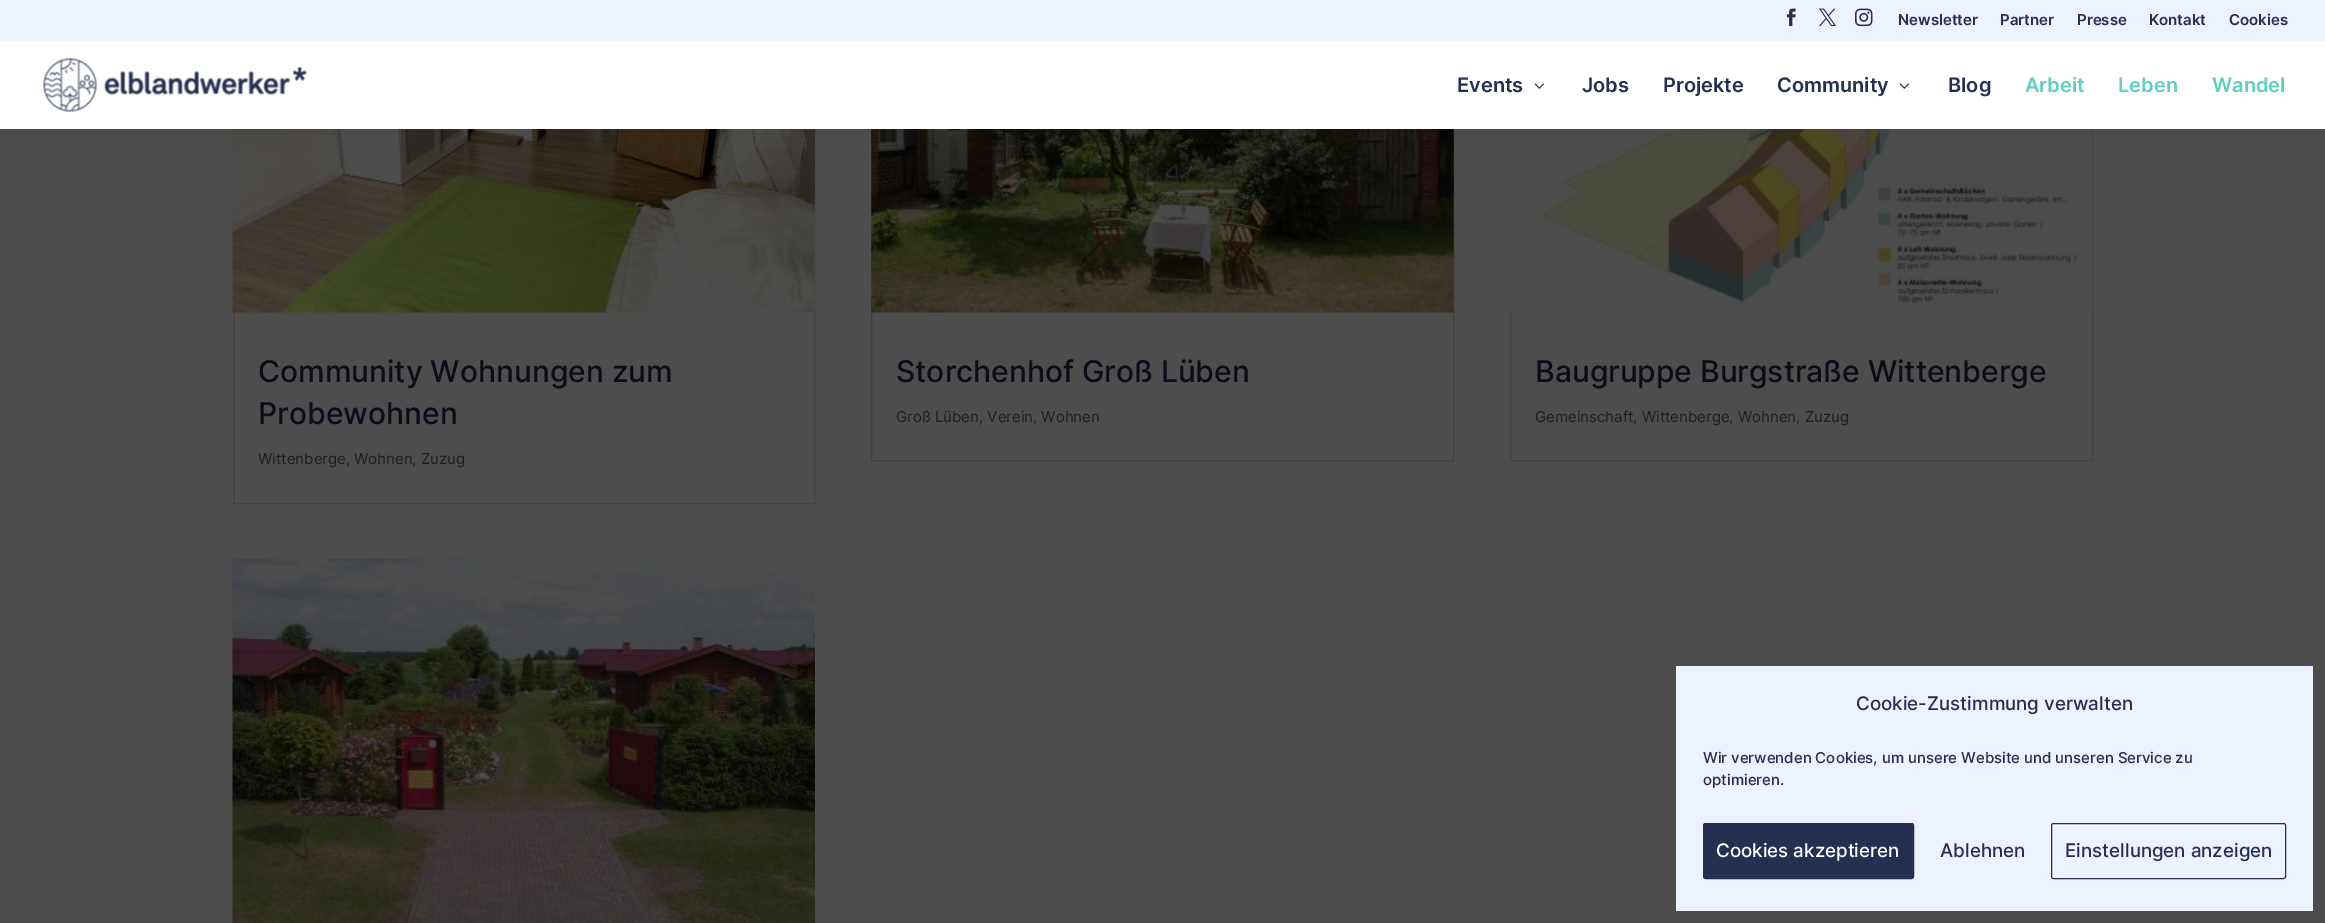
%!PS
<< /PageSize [2325 923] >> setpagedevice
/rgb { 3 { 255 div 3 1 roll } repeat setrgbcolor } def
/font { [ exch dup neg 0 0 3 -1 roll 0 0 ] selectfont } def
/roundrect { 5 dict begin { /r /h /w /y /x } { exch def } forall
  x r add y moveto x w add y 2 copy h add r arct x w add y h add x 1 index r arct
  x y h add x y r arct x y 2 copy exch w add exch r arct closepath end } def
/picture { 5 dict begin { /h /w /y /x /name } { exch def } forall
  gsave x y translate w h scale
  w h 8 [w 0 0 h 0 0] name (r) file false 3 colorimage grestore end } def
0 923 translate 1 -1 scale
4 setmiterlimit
77 77 77 rgb
0 0 2325 923 rectfill
65 65 65 rgb
233.5 -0.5 581 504 rectstroke
871.5 -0.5 582 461 rectstroke
1510.5 -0.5 582 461 rectstroke
236 242 255 rgb
0 0 2325 41 rectfill
(img/1.rgb) 1786 8 10 19 picture
(img/2.rgb) 1818 8 18 19 picture
(img/3.rgb) 1855 8 18 19 picture
255 255 255 rgb
0 41 2325 88 rectfill
(img/4.rgb) 43 58 264 54 picture
(img/5.rgb) 1534 83 10 6 picture
(img/5.rgb) 1899 83 10 6 picture
(img/6.rgb) 232 129 583 184 picture
(img/7.rgb) 232 558 583 365 picture
(img/8.rgb) 871 129 583 184 picture
(img/9.rgb) 1510 129 583 184 picture
236 242 255 rgb
1676 666 637 245 rectfill
36 48 79 rgb
1703.5 823.5 210 55 2 roundrect gsave fill grestore
stroke
2051.5 823.5 234 55 2 roundrect stroke
/Inter-SemiBold 15 font
[
  [(Newsletter) 1898 25]
  [(Partner) 2000 25]
  [(Presse) 2077 25]
  [(Kontakt) 2149 25]
  [(Cookies) 2229 25]
] { aload pop moveto show } forall
/Inter-SemiBold 20 font
[
  [(Events) 1457 92]
  [(Jobs) 1582 92]
  [(Projekte) 1663 92]
  [(Community) 1777 92]
  [(Blog) 1948 92]
] { aload pop moveto show } forall
98 205 193 rgb
[
  [(Arbeit) 2025 92]
  [(Leben) 2118 92]
  [(Wandel) 2212 92]
] { aload pop moveto show } forall
/Inter-Medium 30 font
11 14 24 rgb
258 382 moveto (Community Wohnungen zum) show
258 424 moveto (Probewohnen) show
/Inter-Regular 15 font
31 31 31 rgb
258 464 moveto (Wittenberge, Wohnen, Zuzug) show
/Inter-Medium 30 font
11 14 24 rgb
896 382 moveto (Storchenhof Groß Lüben) show
/Inter-Regular 15 font
31 31 31 rgb
896 422 moveto (Groß Lüben, Verein, Wohnen) show
/Inter-Medium 30 font
11 14 24 rgb
1535 382 moveto (Baugruppe Burgstraße Wittenberge) show
/Inter-Regular 15 font
31 31 31 rgb
1535 422 moveto (Gemeinschaft, Wittenberge, Wohnen, Zuzug) show
/Inter-Medium 18.75 font
36 48 79 rgb
1856 710 moveto (Cookie-Zustimmung verwalten) show
/Inter-Medium 15 font
1703 763 moveto (Wir verwenden Cookies, um unsere Website und unseren Service zu) show
1703 785 moveto (optimieren.) show
/Inter-Medium 18.75 font
255 255 255 rgb
1716 857 moveto (Cookies akzeptieren) show
36 48 79 rgb
1940 857 moveto (Ablehnen) show
2065 857 moveto (Einstellungen anzeigen) show
showpage
